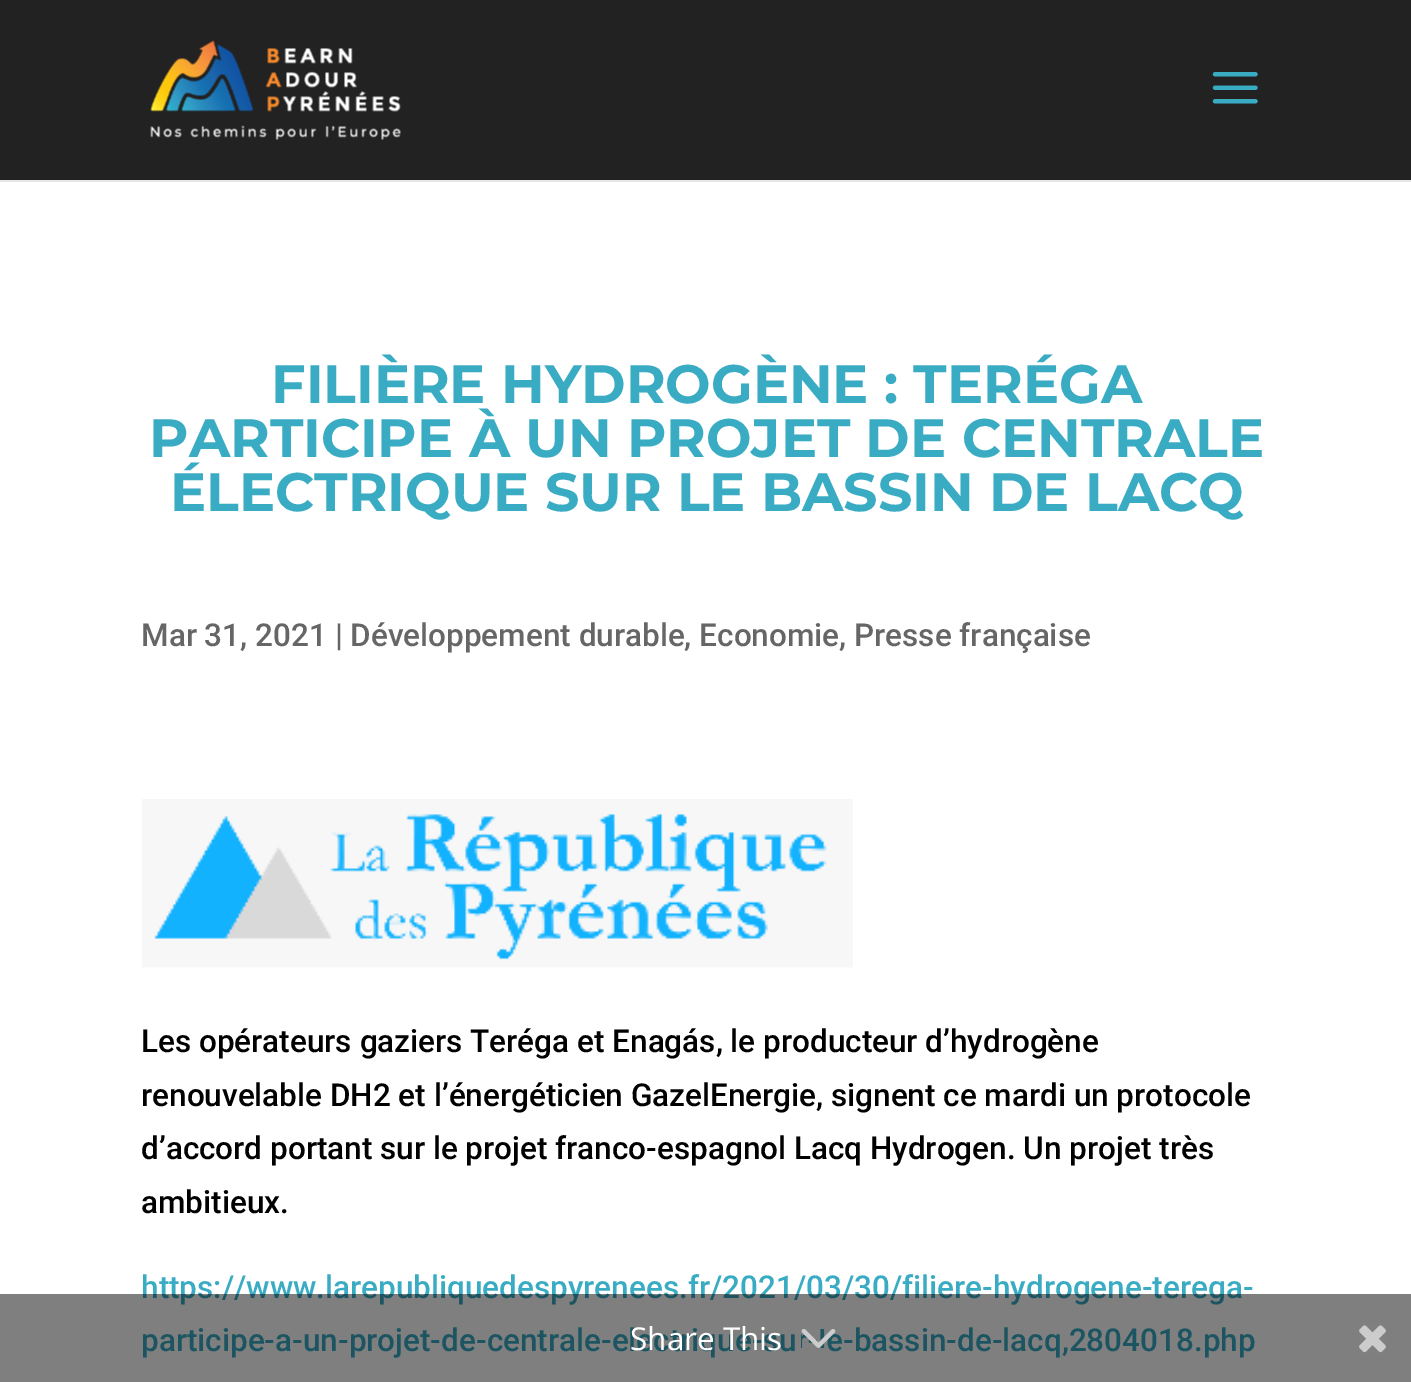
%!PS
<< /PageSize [1411 1382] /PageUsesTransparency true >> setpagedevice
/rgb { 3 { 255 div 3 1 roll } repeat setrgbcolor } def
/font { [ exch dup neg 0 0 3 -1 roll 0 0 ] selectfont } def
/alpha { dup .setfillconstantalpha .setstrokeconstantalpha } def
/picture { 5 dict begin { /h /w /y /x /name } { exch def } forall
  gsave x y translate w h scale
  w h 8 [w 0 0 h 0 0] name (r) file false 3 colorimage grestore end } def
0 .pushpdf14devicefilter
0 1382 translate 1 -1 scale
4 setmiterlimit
255 255 255 rgb
0 0 1411 1382 rectfill
230 230 230 rgb
0 180 1411 2 rectfill
34 34 34 rgb
0 0 1411 180 rectfill
(img/1.rgb) 150 40 251 100 picture
(img/2.rgb) 1212 72 46 32 picture
(img/3.rgb) 142 799 711 169 picture
/Montserrat-Bold 54 font
57 171 195 rgb
[
  [(FILIÈRE HYDROGÈNE : TERÉGA) 271 403]
  [(PARTICIPE À UN PROJET DE CENTRALE) 149 457]
  [(ÉLECTRIQUE SUR LE BASSIN DE LACQ) 170 511]
] { aload pop moveto show } forall
/Roboto-Medium 31.5 font
102 102 102 rgb
141 646 moveto (Mar 31, 2021 | Développement durable, Economie, Presse française) show
0 0 0 rgb
[
  [(Les opérateurs gaziers Teréga et Enagás, le producteur d’hydrogène) 141 1052]
  [(renouvelable DH2 et l’énergéticien GazelEnergie, signent ce mardi un protocole) 141 1106]
  [(d’accord portant sur le projet franco-espagnol Lacq Hydrogen. Un projet très) 141 1159]
  [(ambitieux.) 141 1213]
] { aload pop moveto show } forall
57 171 195 rgb
[
  [(https://www.larepubliquedespyrenees.fr/2021/03/30/filiere-hydrogene-terega-) 141 1298]
  [(participe-a-un-projet-de-centrale-electrique-su) 141 1351]
  [(e-bassin-de-lacq,2804018.php) 826 1351]
] { aload pop moveto show } forall
0.5 alpha
0 0 0 rgb
0 1294 1411 88 rectfill
/OpenSans-Regular 31.5 font
1 alpha
255 255 255 rgb
630 1350 moveto (Share This) show
(img/4.rgb) 801 1329 35 19 picture
(img/5.rgb) 1359 1325 27 28 picture
.poppdf14devicefilter showpage
